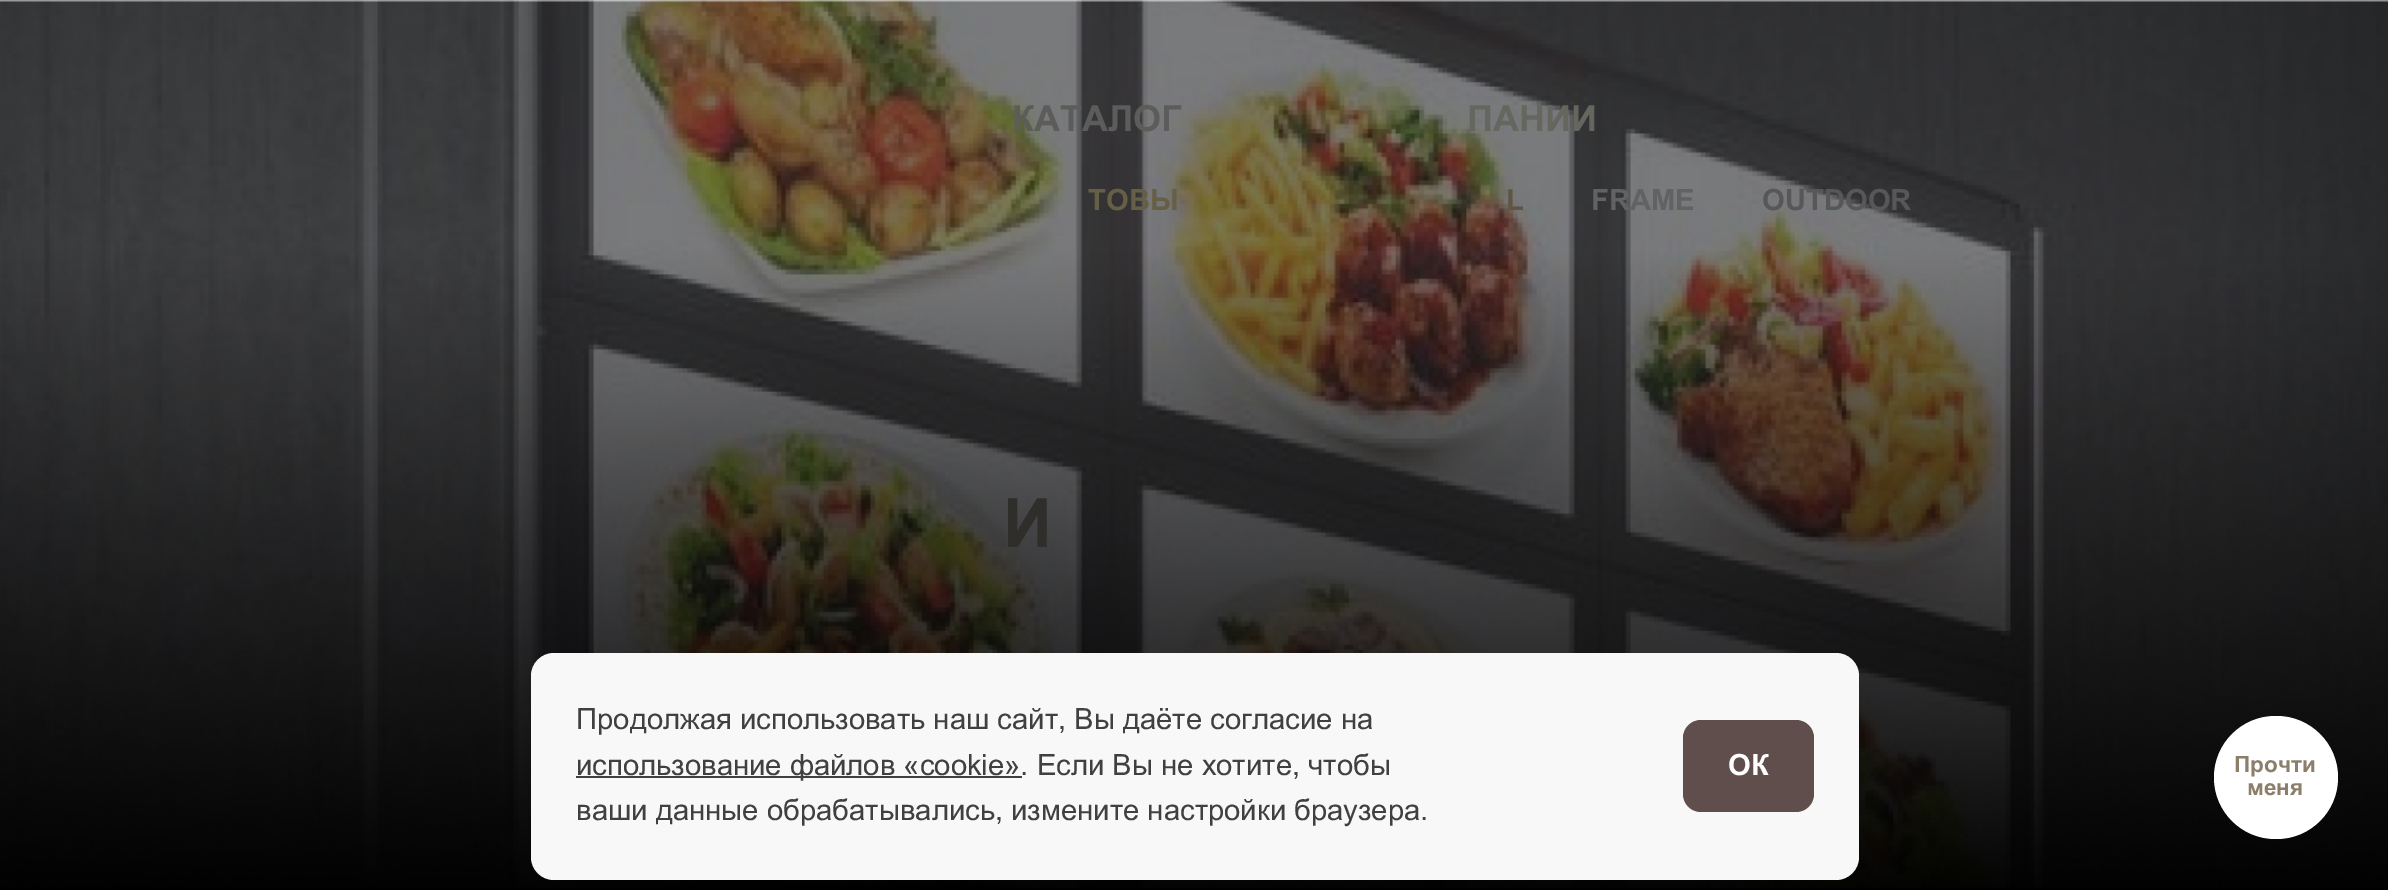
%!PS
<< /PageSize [2388 890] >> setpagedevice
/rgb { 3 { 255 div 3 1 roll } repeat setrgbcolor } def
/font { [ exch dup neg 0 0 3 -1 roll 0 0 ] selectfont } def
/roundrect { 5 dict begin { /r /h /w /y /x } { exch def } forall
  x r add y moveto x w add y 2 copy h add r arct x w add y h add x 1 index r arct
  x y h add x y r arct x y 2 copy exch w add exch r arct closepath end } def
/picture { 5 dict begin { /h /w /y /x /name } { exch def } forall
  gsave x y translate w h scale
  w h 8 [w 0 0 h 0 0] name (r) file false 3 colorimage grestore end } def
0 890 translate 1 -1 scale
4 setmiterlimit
0 0 0 rgb
0 0 2388 890 rectfill
(img/1.rgb) 0 0 2388 888 picture
248 248 248 rgb
531 653 1328 227 23 roundrect fill
64 64 64 rgb
576 776 446 2 rectfill
96 78 77 rgb
1683 720 131 92 18 roundrect fill
255 255 255 rgb
2214 716 124 123 61.5 roundrect fill
/Arial-Bold 36 font
92 93 90 rgb
1012 131 moveto (КАТАЛОГ) show
101 102 94 rgb
1467 131 moveto (ПАНИИ) show
/Arial-Bold 29.25 font
102 95 70 rgb
1088 210 moveto (ТОВЫ) show
95 85 67 rgb
1506 210 moveto (L) show
97 98 100 rgb
1591 210 moveto (FRAME) show
87 87 89 rgb
1762 210 moveto (OUTDOOR) show
/Arial-Bold 68 font
47 46 43 rgb
1003 547 moveto (И) show
/Arial-Regular 29.25 font
64 64 64 rgb
[
  [(Продолжая использовать наш сайт, Вы даёте согласие на) 576 729]
  [(использование файлов «cookie». Если Вы не хотите, чтобы) 576 775]
  [(ваши данные обрабатывались, измените настройки браузера.) 576 820]
] { aload pop moveto show } forall
/Arial-Bold 29.25 font
255 255 255 rgb
1728 775 moveto (ОК) show
/Arial-Bold 22.5 font
139 127 108 rgb
2234 772 moveto (Прочти) show
2247 795 moveto (меня) show
showpage
